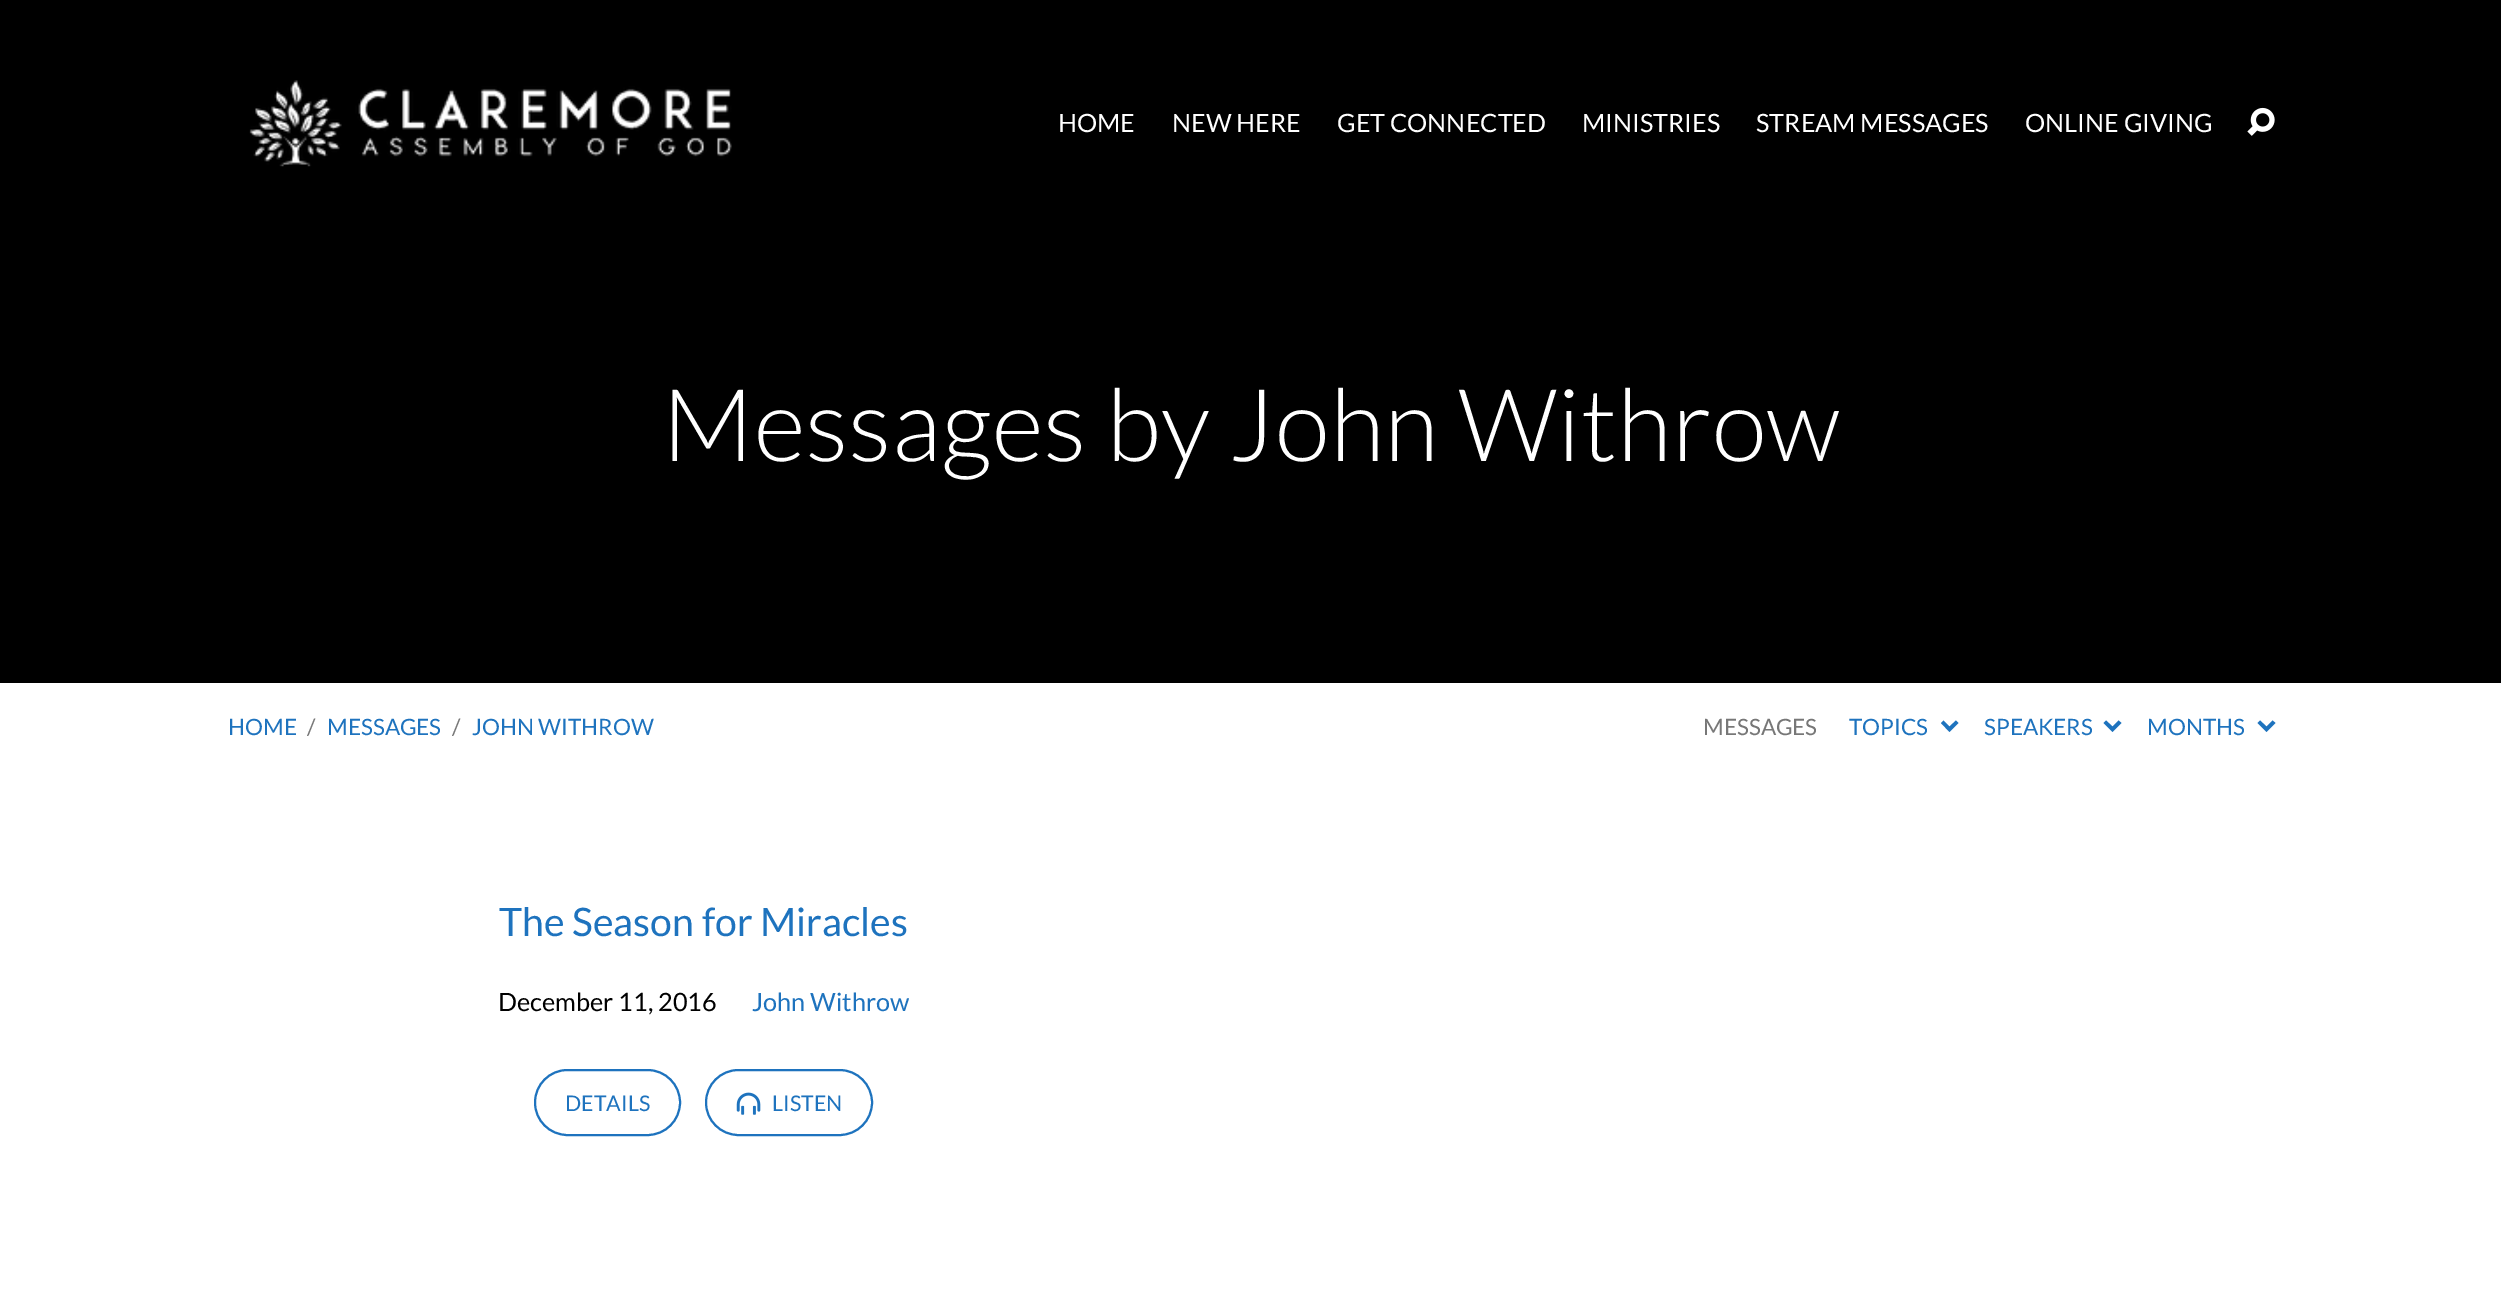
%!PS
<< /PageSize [2501 1303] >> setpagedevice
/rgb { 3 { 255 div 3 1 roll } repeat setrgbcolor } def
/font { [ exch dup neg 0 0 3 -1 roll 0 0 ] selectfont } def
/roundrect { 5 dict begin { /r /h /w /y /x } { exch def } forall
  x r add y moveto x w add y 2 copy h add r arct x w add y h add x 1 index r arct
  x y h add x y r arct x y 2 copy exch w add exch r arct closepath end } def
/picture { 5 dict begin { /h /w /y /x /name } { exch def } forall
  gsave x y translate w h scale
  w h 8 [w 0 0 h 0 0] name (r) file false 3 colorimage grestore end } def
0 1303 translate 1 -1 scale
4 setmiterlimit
255 255 255 rgb
0 0 2501 1303 rectfill
0 0 0 rgb
0 0 2501 683 rectfill
(img/1.rgb) 249 80 483 87 picture
(img/2.rgb) 2247 107 28 29 picture
30 115 190 rgb
1949.5 732 moveto 1941 723 lineto 1943.5 720.5 lineto 1949.5 726.5 lineto 1956 720.5 lineto 1958.5 723 lineto closepath fill
2112.5 732 moveto 2103.5 723 lineto 2106 720.5 lineto 2112.5 726.5 lineto 2118.5 720.5 lineto 2121.5 723 lineto closepath fill
2266.5 732 moveto 2257.5 723 lineto 2260 720.5 lineto 2266.5 726.5 lineto 2272.5 720.5 lineto 2275.5 723 lineto closepath fill
2 setlinewidth
535 1070 145 65 32.5 roundrect stroke
706 1070 166 65 32.5 roundrect stroke
(img/3.rgb) 736 1092 25 23 picture
/Lato-Regular 25.25 font
255 255 255 rgb
[
  [(HOME) 1058 132]
  [(NEW HERE) 1172 132]
  [(GET CONNECTED) 1337 132]
  [(MINISTRIES) 1582 132]
  [(STREAM MESSAGES) 1756 132]
  [(ONLINE GIVING) 2025 132]
] { aload pop moveto show } forall
/Lato-Light 100.75 font
662 461 moveto (Messages by John Withrow) show
/Lato-Regular 22.5 font
30 115 190 rgb
228 735 moveto (HOME) show
119 119 119 rgb
307 735 moveto (/) show
30 115 190 rgb
327 735 moveto (MESSAGES) show
119 119 119 rgb
452 735 moveto (/) show
30 115 190 rgb
472 735 moveto (JOHN WITHROW) show
119 119 119 rgb
1703 735 moveto (MESSAGES) show
30 115 190 rgb
[
  [(TOPICS) 1849 735]
  [(SPEAKERS) 1984 735]
  [(MONTHS) 2147 735]
] { aload pop moveto show } forall
/Lato-Regular 39.25 font
499 936 moveto (The Season for Miracles) show
/Lato-Regular 25.25 font
0 0 0 rgb
498 1011 moveto (December 11, 2016) show
30 115 190 rgb
752 1011 moveto (John Withrow) show
/Lato-Regular 21.5 font
565 1111 moveto (DETAILS) show
772 1111 moveto (LISTEN) show
showpage
